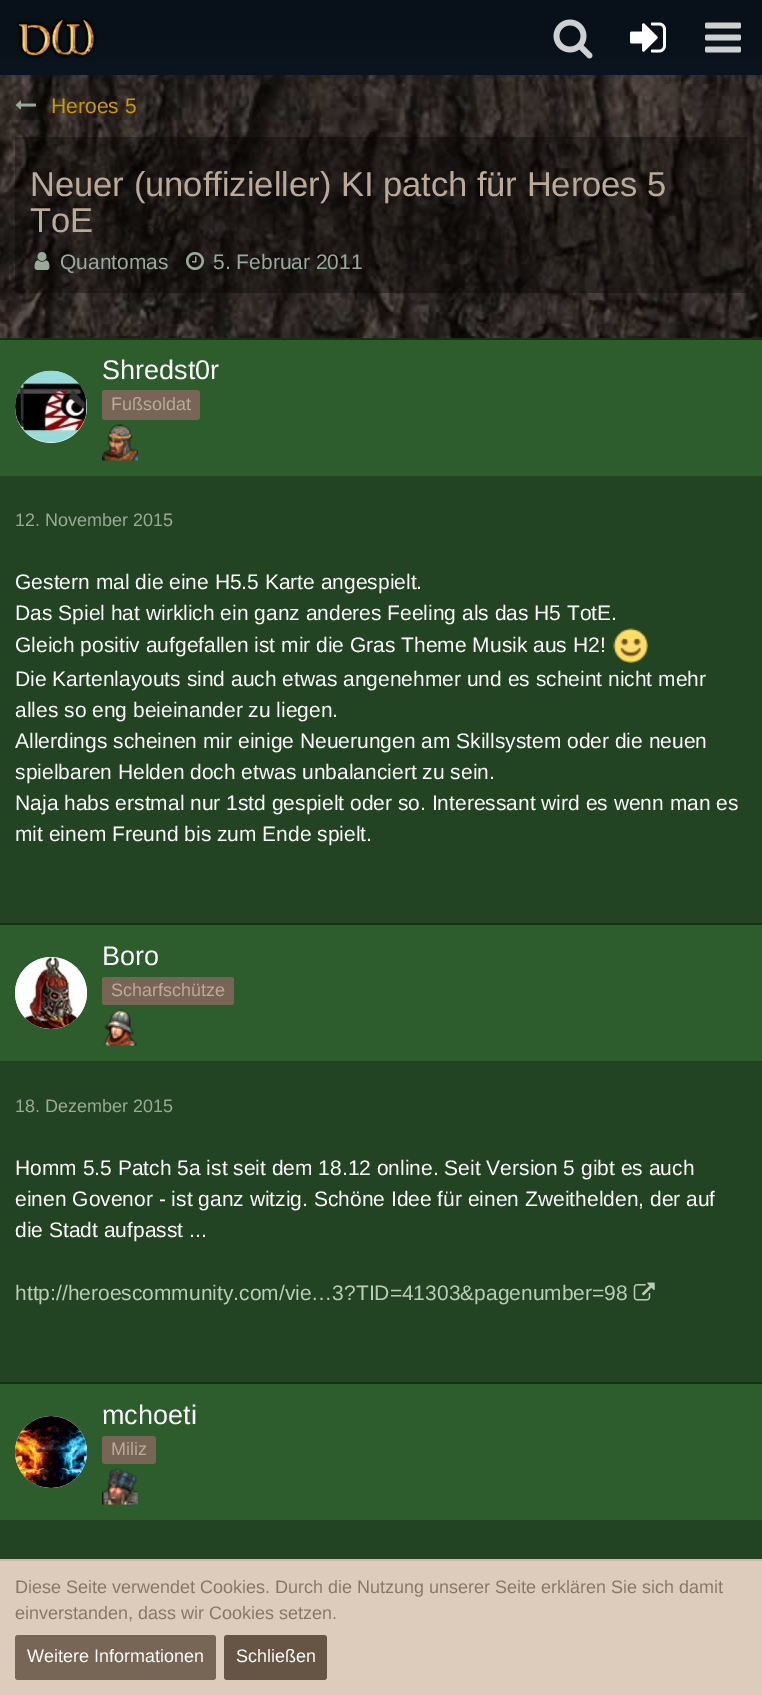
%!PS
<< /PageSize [762 1695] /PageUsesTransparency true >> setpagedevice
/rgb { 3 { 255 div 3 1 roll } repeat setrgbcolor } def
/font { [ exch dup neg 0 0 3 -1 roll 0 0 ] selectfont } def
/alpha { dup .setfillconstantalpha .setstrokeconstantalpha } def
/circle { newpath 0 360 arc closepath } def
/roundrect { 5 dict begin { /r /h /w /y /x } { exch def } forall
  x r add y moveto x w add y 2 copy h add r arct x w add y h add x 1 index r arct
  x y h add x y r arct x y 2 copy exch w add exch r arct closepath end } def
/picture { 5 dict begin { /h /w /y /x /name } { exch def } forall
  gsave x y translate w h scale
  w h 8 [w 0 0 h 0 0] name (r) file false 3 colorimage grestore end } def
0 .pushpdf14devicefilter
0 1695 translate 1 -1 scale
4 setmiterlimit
255 255 255 rgb
0 0 762 1695 rectfill
(img/1.rgb) 0 75 762 263 picture
(img/2.rgb) 0 0 762 75 picture
(img/3.rgb) 16 17 81 42 picture
(img/4.rgb) 553 19 40 40 picture
(img/5.rgb) 630 22 36 31 picture
(img/6.rgb) 705 22 36 31 picture
(img/7.rgb) 15 100 21 10 picture
0.35 alpha
0 0 0 rgb
15 137 732 156 rectfill
1 alpha
(img/8.rgb) 34 252 16 18 picture
(img/9.rgb) 186 252 18 18 picture
[
  [0 476 762 1083 34 68 34]
  [0 340 762 136 45 93 45]
  [0 338 762 2 17 51 17]
] { aload pop rgb rectfill } forall
255 255 255 rgb
51 407 36 circle fill
(img/10.rgb) 15 370 72 73 picture
119 102 85 rgb
102 390 98 30 3 roundrect fill
(img/11.rgb) 102 424 36 37 picture
(img/12.rgb) 613 628 35 35 picture
45 93 45 rgb
0 925 762 136 rectfill
17 51 17 rgb
0 923 762 2 rectfill
255 255 255 rgb
51 993 36 circle fill
(img/13.rgb) 15 957 72 72 picture
119 102 85 rgb
102 977 132 28 3 roundrect fill
(img/14.rgb) 103 1009 34 37 picture
(img/15.rgb) 633 1282 22 19 picture
45 93 45 rgb
0 1384 762 136 rectfill
17 51 17 rgb
0 1382 762 2 rectfill
255 255 255 rgb
51 1452 36 circle fill
(img/16.rgb) 15 1416 72 72 picture
119 102 85 rgb
102 1436 54 28 3 roundrect fill
(img/17.rgb) 102 1468 36 37 picture
221 204 187 rgb
0 1561 762 134 rectfill
204 187 170 rgb
0 1559 762 2 rectfill
119 102 85 rgb
15 1635 201 45 3 roundrect fill
102 85 68 rgb
224 1635 103 45 3 roundrect fill
/LiberationSans-Regular 21 font
204 153 0 rgb
51 113 moveto (Heroes 5) show
/LiberationSans-Regular 34.5 font
187 170 153 rgb
30 196 moveto (Neuer \(unoffizieller\) KI patch für Heroes 5) show
30 232 moveto (ToE) show
/LiberationSans-Regular 21 font
153 170 153 rgb
60 269 moveto (Quantomas) show
213 269 moveto (5. Februar 2011) show
/LiberationSans-Regular 27 font
255 255 255 rgb
102 379 moveto (Shredst0r) show
/LiberationSans-Regular 18 font
187 170 153 rgb
111 410 moveto (Fußsoldat) show
153 170 153 rgb
15 526 moveto (12. November 2015) show
/LiberationSans-Regular 21 font
255 255 255 rgb
[
  [(Gestern mal die eine H5.5 Karte angespielt.) 15 589]
  [(Das Spiel hat wirklich ein ganz anderes Feeling als das H5 TotE.) 15 620]
  [(Gleich positiv aufgefallen ist mir die Gras Theme Musik aus H2!) 15 652]
  [(Die Kartenlayouts sind auch etwas angenehmer und es scheint nicht mehr) 15 686]
  [(alles so eng beieinander zu liegen.) 15 717]
  [(Allerdings scheinen mir einige Neuerungen am Skillsystem oder die neuen) 15 748]
  [(spielbaren Helden doch etwas unbalanciert zu sein.) 15 779]
  [(Naja habs erstmal nur 1std gespielt oder so. Interessant wird es wenn man es) 15 810]
  [(mit einem Freund bis zum Ende spielt.) 15 841]
] { aload pop moveto show } forall
/LiberationSans-Regular 27 font
102 965 moveto (Boro) show
/LiberationSans-Regular 18 font
187 170 153 rgb
111 996 moveto (Scharfschütze) show
153 170 153 rgb
15 1112 moveto (18. Dezember 2015) show
/LiberationSans-Regular 21 font
255 255 255 rgb
[
  [(Homm 5.5 Patch 5a ist seit dem 18.12 online. Seit Version 5 gibt es auch) 15 1175]
  [(einen Govenor - ist ganz witzig. Schöne Idee für einen Zweithelden, der auf) 15 1206]
  [(die Stadt aufpasst ...) 15 1237]
] { aload pop moveto show } forall
187 204 187 rgb
15 1300 moveto (http://heroescommunity.com/vie…3?TID=41303&pagenumber=98) show
/LiberationSans-Regular 27 font
255 255 255 rgb
102 1424 moveto (mchoeti) show
/LiberationSans-Regular 18 font
187 170 153 rgb
111 1455 moveto (Miliz) show
136 119 102 rgb
15 1593 moveto (Diese Seite verwendet Cookies. Durch die Nutzung unserer Seite erklären Sie sich damit) show
15 1619 moveto (einverstanden, dass wir Cookies setzen.) show
255 255 255 rgb
27 1662 moveto (Weitere Informationen) show
236 1662 moveto (Schließen) show
.poppdf14devicefilter showpage
